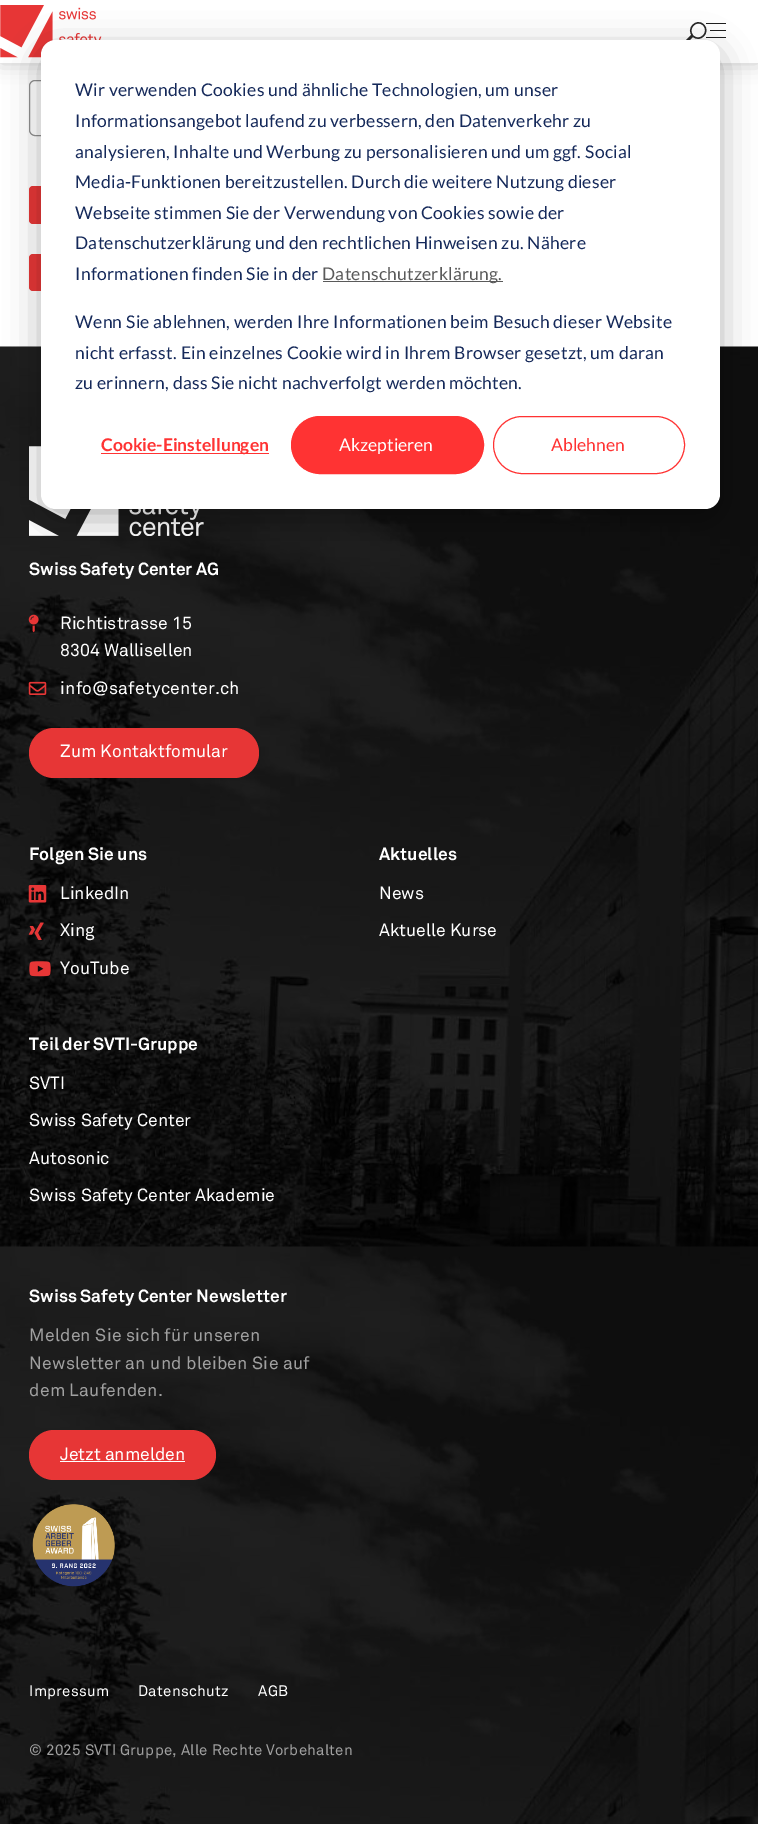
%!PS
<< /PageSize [758 1824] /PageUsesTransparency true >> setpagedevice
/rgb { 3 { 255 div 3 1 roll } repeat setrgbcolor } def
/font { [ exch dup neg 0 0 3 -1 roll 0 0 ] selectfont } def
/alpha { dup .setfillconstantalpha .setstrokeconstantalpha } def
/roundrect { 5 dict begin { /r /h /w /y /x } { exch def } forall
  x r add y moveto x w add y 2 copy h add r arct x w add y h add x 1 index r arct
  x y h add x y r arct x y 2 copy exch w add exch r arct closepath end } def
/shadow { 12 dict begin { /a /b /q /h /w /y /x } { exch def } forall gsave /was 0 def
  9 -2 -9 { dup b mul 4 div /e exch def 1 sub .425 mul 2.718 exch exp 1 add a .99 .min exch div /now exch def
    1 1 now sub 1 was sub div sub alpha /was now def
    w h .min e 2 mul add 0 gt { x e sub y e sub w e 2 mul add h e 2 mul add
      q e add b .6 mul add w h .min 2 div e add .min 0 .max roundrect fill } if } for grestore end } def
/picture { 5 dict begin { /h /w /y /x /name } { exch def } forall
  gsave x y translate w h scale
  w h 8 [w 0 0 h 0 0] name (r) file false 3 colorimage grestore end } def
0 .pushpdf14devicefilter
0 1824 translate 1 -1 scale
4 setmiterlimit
255 255 255 rgb
0 0 758 1824 rectfill
(img/1.rgb) 0 5 102 53 picture
40 40 40 rgb
1.4 setlinewidth
703.5 25 moveto 696.5 18 686 29 693 36 curveto 700 43 710.5 32 703.5 25 curveto closepath stroke
2.7 setlinewidth
2 setlinecap
691.5 36.5 moveto 686.5 41.5 lineto stroke
[
  [706 23 20 1 30 30 30]
  [710 30 16 1 30 30 30]
  [706 37 20 1 30 30 30]
] { aload pop rgb rectfill } forall
145 145 145 rgb
1 setlinewidth
0 setlinecap
29.5 80.5 686 55 5.5 roundrect stroke
gsave
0 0 moveto 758 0 lineto 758 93 lineto 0 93 lineto closepath 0 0 moveto 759 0 lineto 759 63 lineto 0 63 lineto closepath eoclip newpath
0 0 0 rgb
0 0 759 63 0 9.5 0.2 shadow
grestore
231 54 54 rgb
29 186 111 38 4 roundrect fill
29 254 219 37 4 roundrect fill
(img/2.rgb) 0 346 758 1478 picture
(img/3.rgb) 29 446 175 90 picture
0 0 0 rgb
41 50 679 469 15 17.5 0.28 shadow
255 255 255 rgb
41 40 679 469 15 roundrect fill
90 90 90 rgb
323 281 180 1 rectfill
255 51 51 rgb
101 453 168 1 rectfill
291.5 416.5 192 57 28.5 roundrect gsave fill grestore
stroke
493.5 416.5 191 57 28.5 roundrect stroke
(img/4.rgb) 28 614 11 19 picture
(img/5.rgb) 28 681 19 14 picture
231 54 54 rgb
29 728 230 50 25 roundrect fill
(img/6.rgb) 28 885 19 18 picture
(img/7.rgb) 28 922 16 18 picture
(img/8.rgb) 29 961 22 16 picture
29 1430 187 50 25 roundrect fill
255 255 255 rgb
60 1461 125 1 rectfill
(img/9.rgb) 32 1504 83 83 picture
/Lato-Regular 17.5 font
21 41 90 rgb
75 96 moveto 0.25 0 (Wir verwenden Cookies und ähnliche Technologien, um unser) ashow
75 127 moveto 0.25 0 (Informationsangebot laufend zu verbessern, den Datenverkehr zu) ashow
75 158 moveto 0.25 0 (analysieren, Inhalte und Werbung zu personalisieren und um ggf. Social) ashow
75 188 moveto 0.25 0 (Media-Funktionen bereitzustellen. Durch die weitere Nutzung dieser) ashow
75 219 moveto 0.25 0 (Webseite stimmen Sie der Verwendung von Cookies sowie der) ashow
75 249 moveto 0.25 0 (Datenschutzerklärung und den rechtlichen Hinweisen zu. Nähere) ashow
75 280 moveto 0.25 0 (Informationen finden Sie in der) ashow
90 90 90 rgb
322 280 moveto 0.25 0 (Datenschutzerklärung.) ashow
21 41 90 rgb
75 328 moveto 0.25 0 (Wenn Sie ablehnen, werden Ihre Informationen beim Besuch dieser Website) ashow
75 359 moveto 0.25 0 (nicht erfasst. Ein einzelnes Cookie wird in Ihrem Browser gesetzt, um daran) ashow
75 389 moveto 0.25 0 (zu erinnern, dass Sie nicht nachverfolgt werden möchten.) ashow
/Lato-Bold 17.5 font
255 51 51 rgb
101 451 moveto (Cookie-Einstellungen) show
/Lato-Regular 17.5 font
255 255 255 rgb
339 451 moveto (Akzeptieren) show
255 51 51 rgb
551 451 moveto (Ablehnen) show
/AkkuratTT-Bold 17.5 font
255 255 255 rgb
29 575 moveto (Swiss Safety Center AG) show
/AkkuratTT-Regular 17.5 font
60 629 moveto (Richtistrasse 15) show
60 656 moveto (8304 Wallisellen) show
60 694 moveto 0.25 0 (info@safetycenter.ch) ashow
60 757 moveto (Zum Kontaktfomular) show
/AkkuratTT-Bold 17.5 font
29 860 moveto (Folgen Sie uns) show
/AkkuratTT-Regular 17.5 font
[
  [(LinkedIn) 60 899]
  [(Xing) 60 936]
  [(YouTube) 60 974]
] { aload pop moveto show } forall
/AkkuratTT-Bold 17.5 font
29 1050 moveto (Teil der SVTI-Gruppe) show
/AkkuratTT-Regular 17.5 font
[
  [(SVTI) 29 1089]
  [(Swiss Safety Center) 29 1126]
  [(Autosonic) 29 1164]
  [(Swiss Safety Center Akademie) 29 1201]
] { aload pop moveto show } forall
/AkkuratTT-Bold 17.5 font
379 860 moveto (Aktuelles) show
/AkkuratTT-Regular 17.5 font
379 899 moveto (News) show
379 936 moveto (Aktuelle Kurse) show
/AkkuratTT-Bold 17.5 font
29 1302 moveto (Swiss Safety Center Newsletter) show
/AkkuratTT-Regular 17.5 font
160 160 160 rgb
29 1341 moveto 0.25 0 (Melden Sie sich für unseren) ashow
29 1369 moveto 0.25 0 (Newsletter an und bleiben Sie auf) ashow
29 1396 moveto 0.25 0 (dem Laufenden.) ashow
255 255 255 rgb
60 1460 moveto (Jetzt anmelden) show
/AkkuratTT-Regular 15 font
29 1696 moveto 0.25 0 (Impressum) ashow
138 1696 moveto 0.25 0 (Datenschutz) ashow
258 1696 moveto 0.25 0 (AGB) ashow
160 160 160 rgb
29 1755 moveto 0.25 0 (© 2025 SVTI Gruppe, Alle Rechte Vorbehalten) ashow
.poppdf14devicefilter showpage
